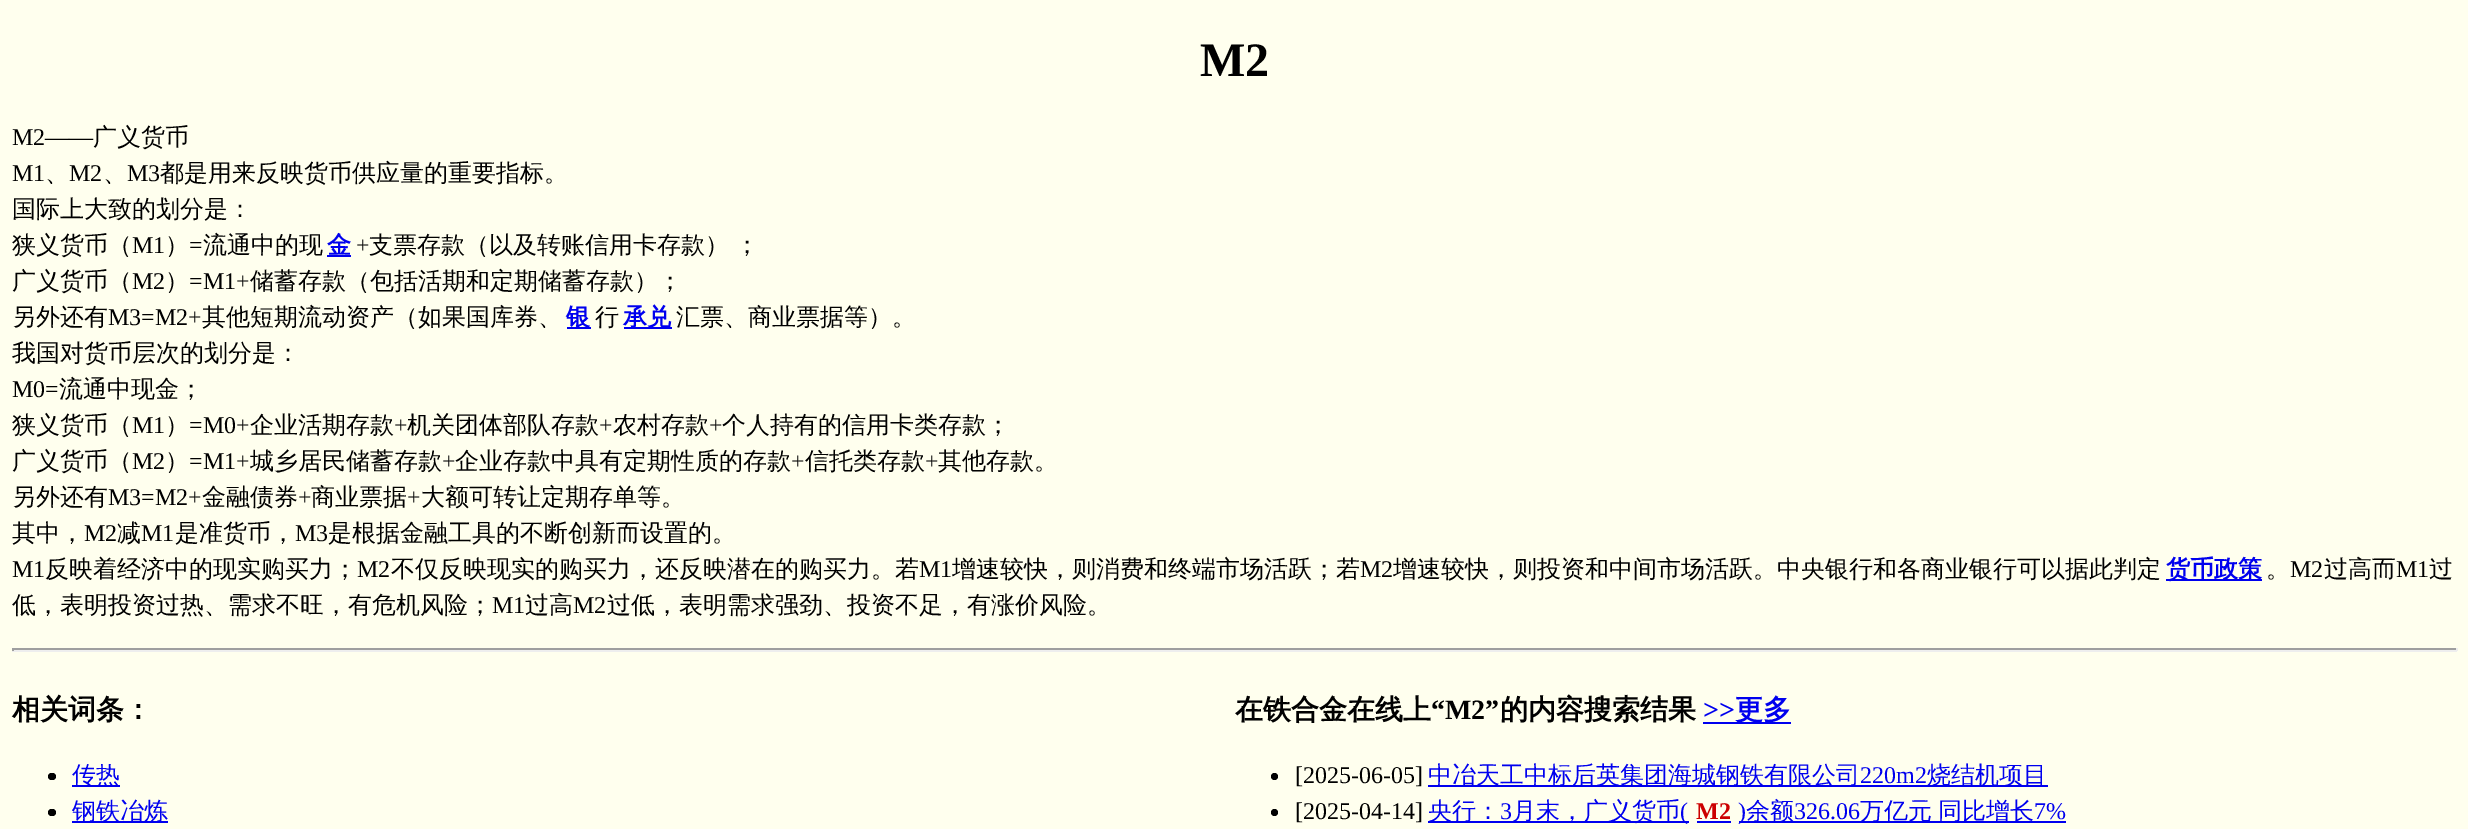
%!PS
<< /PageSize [2468 829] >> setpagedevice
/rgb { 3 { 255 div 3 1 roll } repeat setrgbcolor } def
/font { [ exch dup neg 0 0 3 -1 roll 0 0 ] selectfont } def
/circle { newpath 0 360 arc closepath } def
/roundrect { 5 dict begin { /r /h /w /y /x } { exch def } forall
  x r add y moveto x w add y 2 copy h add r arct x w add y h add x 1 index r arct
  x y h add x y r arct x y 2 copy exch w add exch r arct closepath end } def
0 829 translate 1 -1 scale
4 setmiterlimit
255 255 238 rgb
0 0 2468 829 rectfill
[
  [327 255 24 2 0 0 238]
  [567 327 24 2 0 0 238]
  [624 327 48 2 0 0 238]
  [2166 579 96 2 0 0 238]
  [12 648 2445 2 159 159 159]
  [2456 648 2 3 238 238 238]
  [12 650 2445 2 238 238 238]
  [12 648 2 3 159 159 159]
] { aload pop rgb rectfill } forall
0 0 0 rgb
48 773 8 7 3.5 roundrect fill
0 0 238 rgb
72 785 48 2 rectfill
0 0 0 rgb
48 809 8 7 3.5 roundrect fill
0 0 238 rgb
72 821 96 2 rectfill
1703 722 88 2 rectfill
0 0 0 rgb
1274.5 776.5 3.5 circle fill
0 0 238 rgb
1428 785 620 2 rectfill
0 0 0 rgb
1274.5 812.5 3.5 circle fill
[
  [1428 821 261 2 0 0 238]
  [1697 821 34 2 0 0 238]
  [1739 821 327 2 0 0 238]
] { aload pop rgb rectfill } forall
/LiberationSerif-Bold 48 font
0 0 0 rgb
1200 76 moveto (M2) show
/LiberationSerif-Regular 24 font
12 145 moveto (M2——) show
/WenQuanYiZenHei-Medium 24 font
93 145 moveto (广义货币) show
/LiberationSerif-Regular 24 font
12 181 moveto (M1) show
/WenQuanYiZenHei-Medium 24 font
45 181 moveto (、) show
/LiberationSerif-Regular 24 font
69 181 moveto (M2) show
/WenQuanYiZenHei-Medium 24 font
103 181 moveto (、) show
/LiberationSerif-Regular 24 font
127 181 moveto (M3) show
/WenQuanYiZenHei-Medium 24 font
[
  [(都是用来反映货币供应量的重要指标。) 160 181]
  [(国际上大致的划分是：) 12 217]
  [(狭义货币（) 12 253]
] { aload pop moveto show } forall
/LiberationSerif-Regular 24 font
132 253 moveto (M1) show
/WenQuanYiZenHei-Medium 24 font
165 253 moveto (）) show
/LiberationSerif-Regular 24 font
189 253 moveto (=) show
/WenQuanYiZenHei-Medium 24 font
203 253 moveto (流通中的现) show
/WenQuanYiZenHei-Bold 24 font
0 0 238 rgb
327 253 moveto (金) show
/LiberationSerif-Regular 24 font
0 0 0 rgb
356 253 moveto (+) show
/WenQuanYiZenHei-Medium 24 font
369 253 moveto -1 0 32 (支票存款（以及转账信用卡存款） ；) widthshow
12 289 moveto (广义货币（) show
/LiberationSerif-Regular 24 font
132 289 moveto (M2) show
/WenQuanYiZenHei-Medium 24 font
165 289 moveto (）) show
/LiberationSerif-Regular 24 font
189 289 moveto (=M1+) show
/WenQuanYiZenHei-Medium 24 font
250 289 moveto (储蓄存款（包括活期和定期储蓄存款）；) show
12 325 moveto (另外还有) show
/LiberationSerif-Regular 24 font
108 325 moveto (M3=M2+) show
/WenQuanYiZenHei-Medium 24 font
202 325 moveto (其他短期流动资产（如果国库券、) show
/WenQuanYiZenHei-Bold 24 font
0 0 238 rgb
566 325 moveto (银) show
/WenQuanYiZenHei-Medium 24 font
0 0 0 rgb
595 325 moveto (行) show
/WenQuanYiZenHei-Bold 24 font
0 0 238 rgb
623 325 moveto (承兑) show
/WenQuanYiZenHei-Medium 24 font
0 0 0 rgb
676 325 moveto (汇票、商业票据等）。) show
12 361 moveto (我国对货币层次的划分是：) show
/LiberationSerif-Regular 24 font
12 397 moveto (M0=) show
/WenQuanYiZenHei-Medium 24 font
59 397 moveto (流通中现金；) show
12 433 moveto (狭义货币（) show
/LiberationSerif-Regular 24 font
132 433 moveto (M1) show
/WenQuanYiZenHei-Medium 24 font
165 433 moveto (）) show
/LiberationSerif-Regular 24 font
189 433 moveto (=M0+) show
/WenQuanYiZenHei-Medium 24 font
250 433 moveto (企业活期存款) show
/LiberationSerif-Regular 24 font
394 433 moveto (+) show
/WenQuanYiZenHei-Medium 24 font
407 433 moveto (机关团体部队存款) show
/LiberationSerif-Regular 24 font
599 433 moveto (+) show
/WenQuanYiZenHei-Medium 24 font
613 433 moveto (农村存款) show
/LiberationSerif-Regular 24 font
709 433 moveto (+) show
/WenQuanYiZenHei-Medium 24 font
722 433 moveto (个人持有的信用卡类存款；) show
12 469 moveto (广义货币（) show
/LiberationSerif-Regular 24 font
132 469 moveto (M2) show
/WenQuanYiZenHei-Medium 24 font
165 469 moveto (）) show
/LiberationSerif-Regular 24 font
189 469 moveto (=M1+) show
/WenQuanYiZenHei-Medium 24 font
250 469 moveto (城乡居民储蓄存款) show
/LiberationSerif-Regular 24 font
442 469 moveto (+) show
/WenQuanYiZenHei-Medium 24 font
455 469 moveto (企业存款中具有定期性质的存款) show
/LiberationSerif-Regular 24 font
791 469 moveto (+) show
/WenQuanYiZenHei-Medium 24 font
805 469 moveto (信托类存款) show
/LiberationSerif-Regular 24 font
925 469 moveto (+) show
/WenQuanYiZenHei-Medium 24 font
938 469 moveto (其他存款。) show
12 505 moveto (另外还有) show
/LiberationSerif-Regular 24 font
108 505 moveto (M3=M2+) show
/WenQuanYiZenHei-Medium 24 font
202 505 moveto (金融债券) show
/LiberationSerif-Regular 24 font
298 505 moveto (+) show
/WenQuanYiZenHei-Medium 24 font
311 505 moveto (商业票据) show
/LiberationSerif-Regular 24 font
407 505 moveto (+) show
/WenQuanYiZenHei-Medium 24 font
421 505 moveto (大额可转让定期存单等。) show
12 541 moveto (其中，) show
/LiberationSerif-Regular 24 font
84 541 moveto (M2) show
/WenQuanYiZenHei-Medium 24 font
117 541 moveto (减) show
/LiberationSerif-Regular 24 font
141 541 moveto (M1) show
/WenQuanYiZenHei-Medium 24 font
175 541 moveto (是准货币，) show
/LiberationSerif-Regular 24 font
295 541 moveto (M3) show
/WenQuanYiZenHei-Medium 24 font
328 541 moveto (是根据金融工具的不断创新而设置的。) show
/LiberationSerif-Regular 24 font
12 577 moveto (M1) show
/WenQuanYiZenHei-Medium 24 font
45 577 moveto (反映着经济中的现实购买力；) show
/LiberationSerif-Regular 24 font
357 577 moveto (M2) show
/WenQuanYiZenHei-Medium 24 font
391 577 moveto (不仅反映现实的购买力，还反映潜在的购买力。若) show
/LiberationSerif-Regular 24 font
919 577 moveto (M1) show
/WenQuanYiZenHei-Medium 24 font
952 577 moveto (增速较快，则消费和终端市场活跃；若) show
/LiberationSerif-Regular 24 font
1360 577 moveto (M2) show
/WenQuanYiZenHei-Medium 24 font
1393 577 moveto (增速较快，则投资和中间市场活跃。中央银行和各商业银行可以据此判定) show
/WenQuanYiZenHei-Bold 24 font
0 0 238 rgb
2166 577 moveto (货币政策) show
/WenQuanYiZenHei-Medium 24 font
0 0 0 rgb
2266 577 moveto (。) show
/LiberationSerif-Regular 24 font
2290 577 moveto (M2) show
/WenQuanYiZenHei-Medium 24 font
2324 577 moveto (过高而) show
/LiberationSerif-Regular 24 font
2396 577 moveto (M1) show
/WenQuanYiZenHei-Medium 24 font
2429 577 moveto (过) show
12 613 moveto (低，表明投资过热、需求不旺，有危机风险；) show
/LiberationSerif-Regular 24 font
492 613 moveto (M1) show
/WenQuanYiZenHei-Medium 24 font
525 613 moveto (过高) show
/LiberationSerif-Regular 24 font
573 613 moveto (M2) show
/WenQuanYiZenHei-Medium 24 font
607 613 moveto (过低，表明需求强劲、投资不足，有涨价风险。) show
/WenQuanYiZenHei-Bold 28 font
12 719 moveto (相关词条：) show
/WenQuanYiZenHei-Medium 24 font
0 0 238 rgb
72 783 moveto (传热) show
72 819 moveto (钢铁冶炼) show
/WenQuanYiZenHei-Bold 28 font
0 0 0 rgb
1235 719 moveto (在铁合金在线上) show
/LiberationSerif-Bold 28 font
1431 719 moveto (“M2”) show
/WenQuanYiZenHei-Bold 28 font
1500 719 moveto (的内容搜索结果) show
/LiberationSerif-Bold 28 font
0 0 238 rgb
1703 719 moveto (>>) show
/WenQuanYiZenHei-Bold 28 font
1735 719 moveto (更多) show
/LiberationSerif-Regular 24 font
0 0 0 rgb
1295 783 moveto ([2025-06-05]) show
/WenQuanYiZenHei-Medium 24 font
0 0 238 rgb
1428 783 moveto (中冶天工中标后英集团海城钢铁有限公司) show
/LiberationSerif-Regular 24 font
1860 783 moveto (220m2) show
/WenQuanYiZenHei-Medium 24 font
1927 783 moveto (烧结机项目) show
/LiberationSerif-Regular 24 font
0 0 0 rgb
1295 819 moveto ([2025-04-14]) show
/WenQuanYiZenHei-Medium 24 font
0 0 238 rgb
1428 819 moveto (央行：) show
/LiberationSerif-Regular 24 font
1500 819 moveto (3) show
/WenQuanYiZenHei-Medium 24 font
1512 819 moveto (月末，广义货币) show
/LiberationSerif-Regular 24 font
1680 819 moveto (\() show
/LiberationSerif-Bold 24 font
204 0 0 rgb
1696 819 moveto (M2) show
/LiberationSerif-Regular 24 font
0 0 238 rgb
1738 819 moveto (\)) show
/WenQuanYiZenHei-Medium 24 font
1746 819 moveto (余额) show
/LiberationSerif-Regular 24 font
1794 819 moveto (326.06) show
/WenQuanYiZenHei-Medium 24 font
1860 819 moveto -1 0 32 (万亿元 同比增长) widthshow
/LiberationSerif-Regular 24 font
2034 819 moveto (7%) show
showpage
